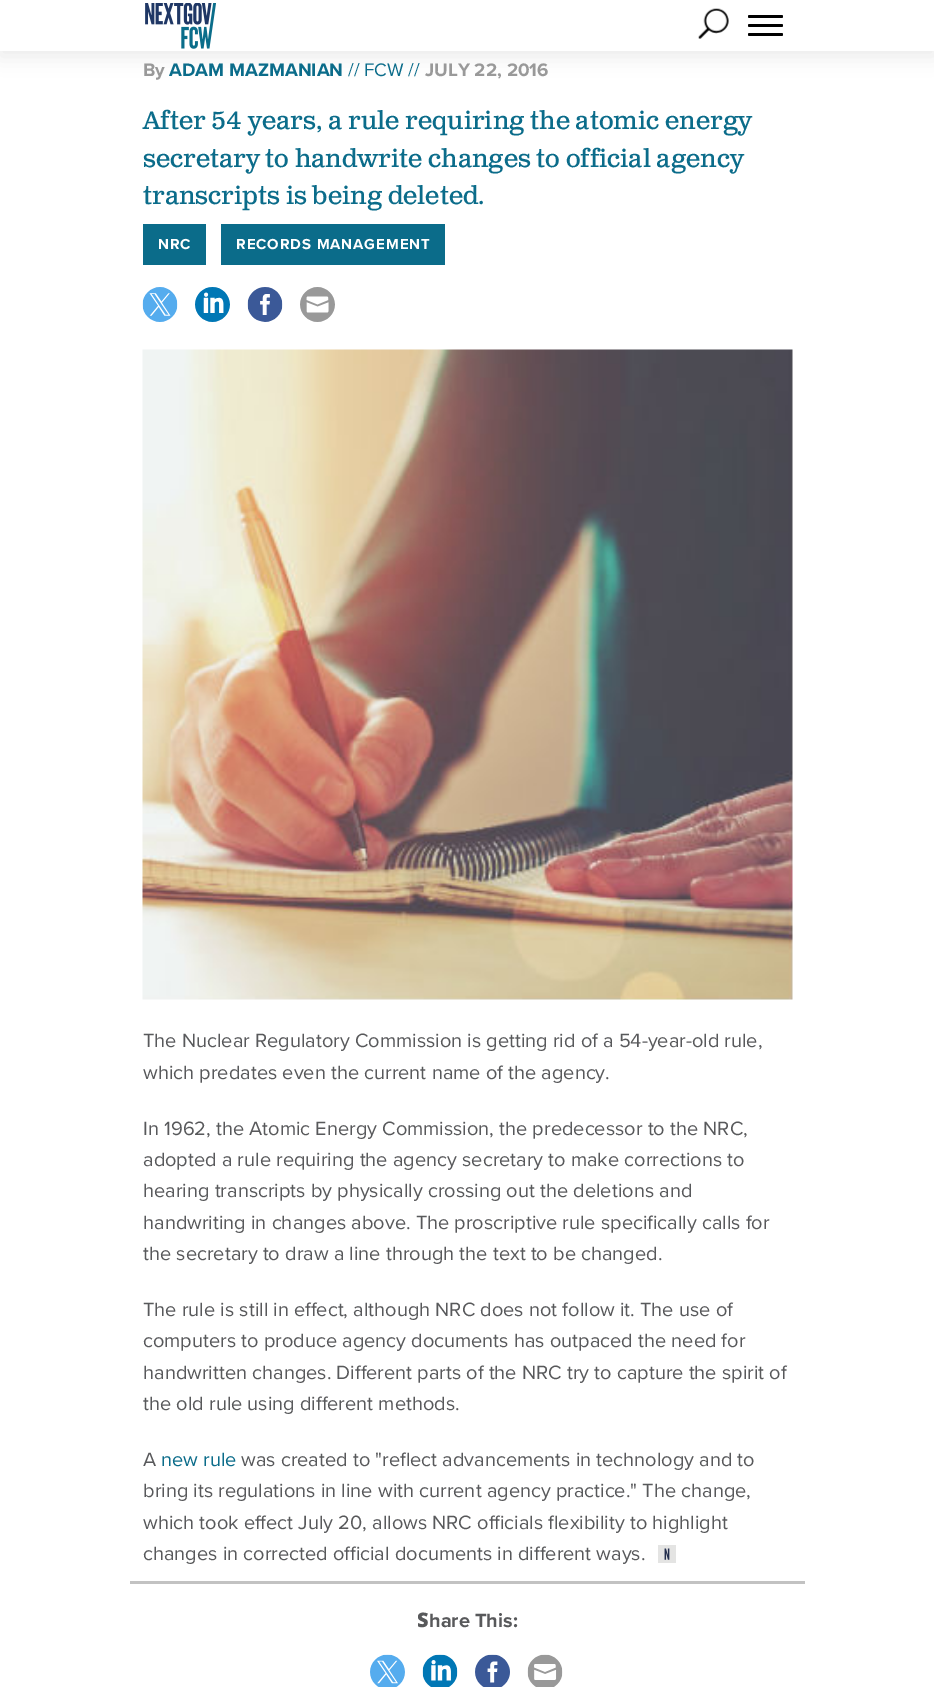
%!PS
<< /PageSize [934 1687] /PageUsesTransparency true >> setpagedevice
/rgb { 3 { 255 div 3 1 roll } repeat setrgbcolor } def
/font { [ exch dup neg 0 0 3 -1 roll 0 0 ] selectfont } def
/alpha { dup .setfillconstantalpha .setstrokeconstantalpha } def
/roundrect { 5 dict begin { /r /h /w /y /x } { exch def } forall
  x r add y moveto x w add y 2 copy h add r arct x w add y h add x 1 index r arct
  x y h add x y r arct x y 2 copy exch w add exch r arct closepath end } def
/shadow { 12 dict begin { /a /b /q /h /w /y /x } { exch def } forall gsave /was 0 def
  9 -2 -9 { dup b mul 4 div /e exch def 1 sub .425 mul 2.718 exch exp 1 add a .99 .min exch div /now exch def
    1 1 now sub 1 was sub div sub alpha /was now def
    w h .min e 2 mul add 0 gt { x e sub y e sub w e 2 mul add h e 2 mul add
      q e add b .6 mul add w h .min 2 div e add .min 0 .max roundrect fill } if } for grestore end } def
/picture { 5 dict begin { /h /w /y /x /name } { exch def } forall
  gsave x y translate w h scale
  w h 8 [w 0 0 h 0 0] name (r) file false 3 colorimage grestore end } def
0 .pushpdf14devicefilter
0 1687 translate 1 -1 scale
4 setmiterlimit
255 255 255 rgb
0 0 934 1687 rectfill
0 0 0 rgb
0 5 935 51 0 9.5 0.08 shadow
255 255 255 rgb
0 0 934 51 rectfill
(img/1.rgb) 145 3 71 46 picture
(img/2.rgb) 698 8 31 31 picture
0 0 0 rgb
748 24 35 3 1.5 roundrect fill
748 15 35 3 1.5 roundrect fill
748 33 35 3 1.5 roundrect fill
11 108 138 rgb
143 224 63 41 rectfill
221 224 224 41 rectfill
(img/3.rgb) 142 287 36 35 picture
(img/4.rgb) 195 287 35 35 picture
(img/5.rgb) 247 287 36 35 picture
(img/6.rgb) 300 287 35 35 picture
(img/7.rgb) 142 349 651 651 picture
(img/8.rgb) 658 1545 18 18 picture
194 194 194 rgb
130 1581 675 3 rectfill
(img/9.rgb) 370 1654 35 33 picture
(img/10.rgb) 422 1654 36 33 picture
(img/11.rgb) 475 1654 35 33 picture
(img/12.rgb) 527 1654 36 33 picture
/ProximaNova-Bold 18.75 font
153 153 153 rgb
143 76 moveto (By) show
11 108 138 rgb
169 76 moveto (ADAM MAZMANIAN) show
/ProximaNova-Regular 18.75 font
348 76 moveto (// FCW //) show
/ProximaNova-Bold 18.75 font
153 153 153 rgb
425 76 moveto (JULY 22, 2016) show
/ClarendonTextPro-Regular 25 font
11 108 138 rgb
[
  [(After 54 years, a rule requiring the atomic energy) 143 129]
  [(secretary to handwrite changes to official agency) 143 167]
  [(transcripts is being deleted.) 143 204]
] { aload pop moveto show } forall
/ProximaNova-Bold 15 font
255 255 255 rgb
158 249 moveto 0.9 0 (NRC) ashow
236 249 moveto 0.9 0 (RECORDS MANAGEMENT) ashow
/ProximaNova-Regular 20 font
88 89 91 rgb
[
  [(The Nuclear Regulatory Commission is getting rid of a 54-year-old rule,) 143 1047]
  [(which predates even the current name of the agency.) 143 1079]
  [(In 1962, the Atomic Energy Commission, the predecessor to the NRC,) 143 1135]
  [(adopted a rule requiring the agency secretary to make corrections to) 143 1166]
  [(hearing transcripts by physically crossing out the deletions and) 143 1197]
  [(handwriting in changes above. The proscriptive rule specifically calls for) 143 1229]
  [(the secretary to draw a line through the text to be changed.) 143 1260]
  [(The rule is still in effect, although NRC does not follow it. The use of) 143 1316]
  [(computers to produce agency documents has outpaced the need for) 143 1347]
  [(handwritten changes. Different parts of the NRC try to capture the spirit of) 143 1379]
  [(the old rule using different methods.) 143 1410]
  [(A) 143 1466]
] { aload pop moveto show } forall
11 108 138 rgb
161 1466 moveto (new rule) show
88 89 91 rgb
[
  [(was created to "reflect advancements in technology and to) 241 1466]
  [(bring its regulations in line with current agency practice." The change,) 143 1497]
  [(which took effect July 20, allows NRC officials flexibility to highlight) 143 1529]
  [(changes in corrected official documents in different ways.) 143 1560]
] { aload pop moveto show } forall
/NotoSans-Black 20 font
417 1627 moveto (S) show
/ProximaNova-Bold 20 font
429 1627 moveto (hare This:) show
.poppdf14devicefilter showpage
